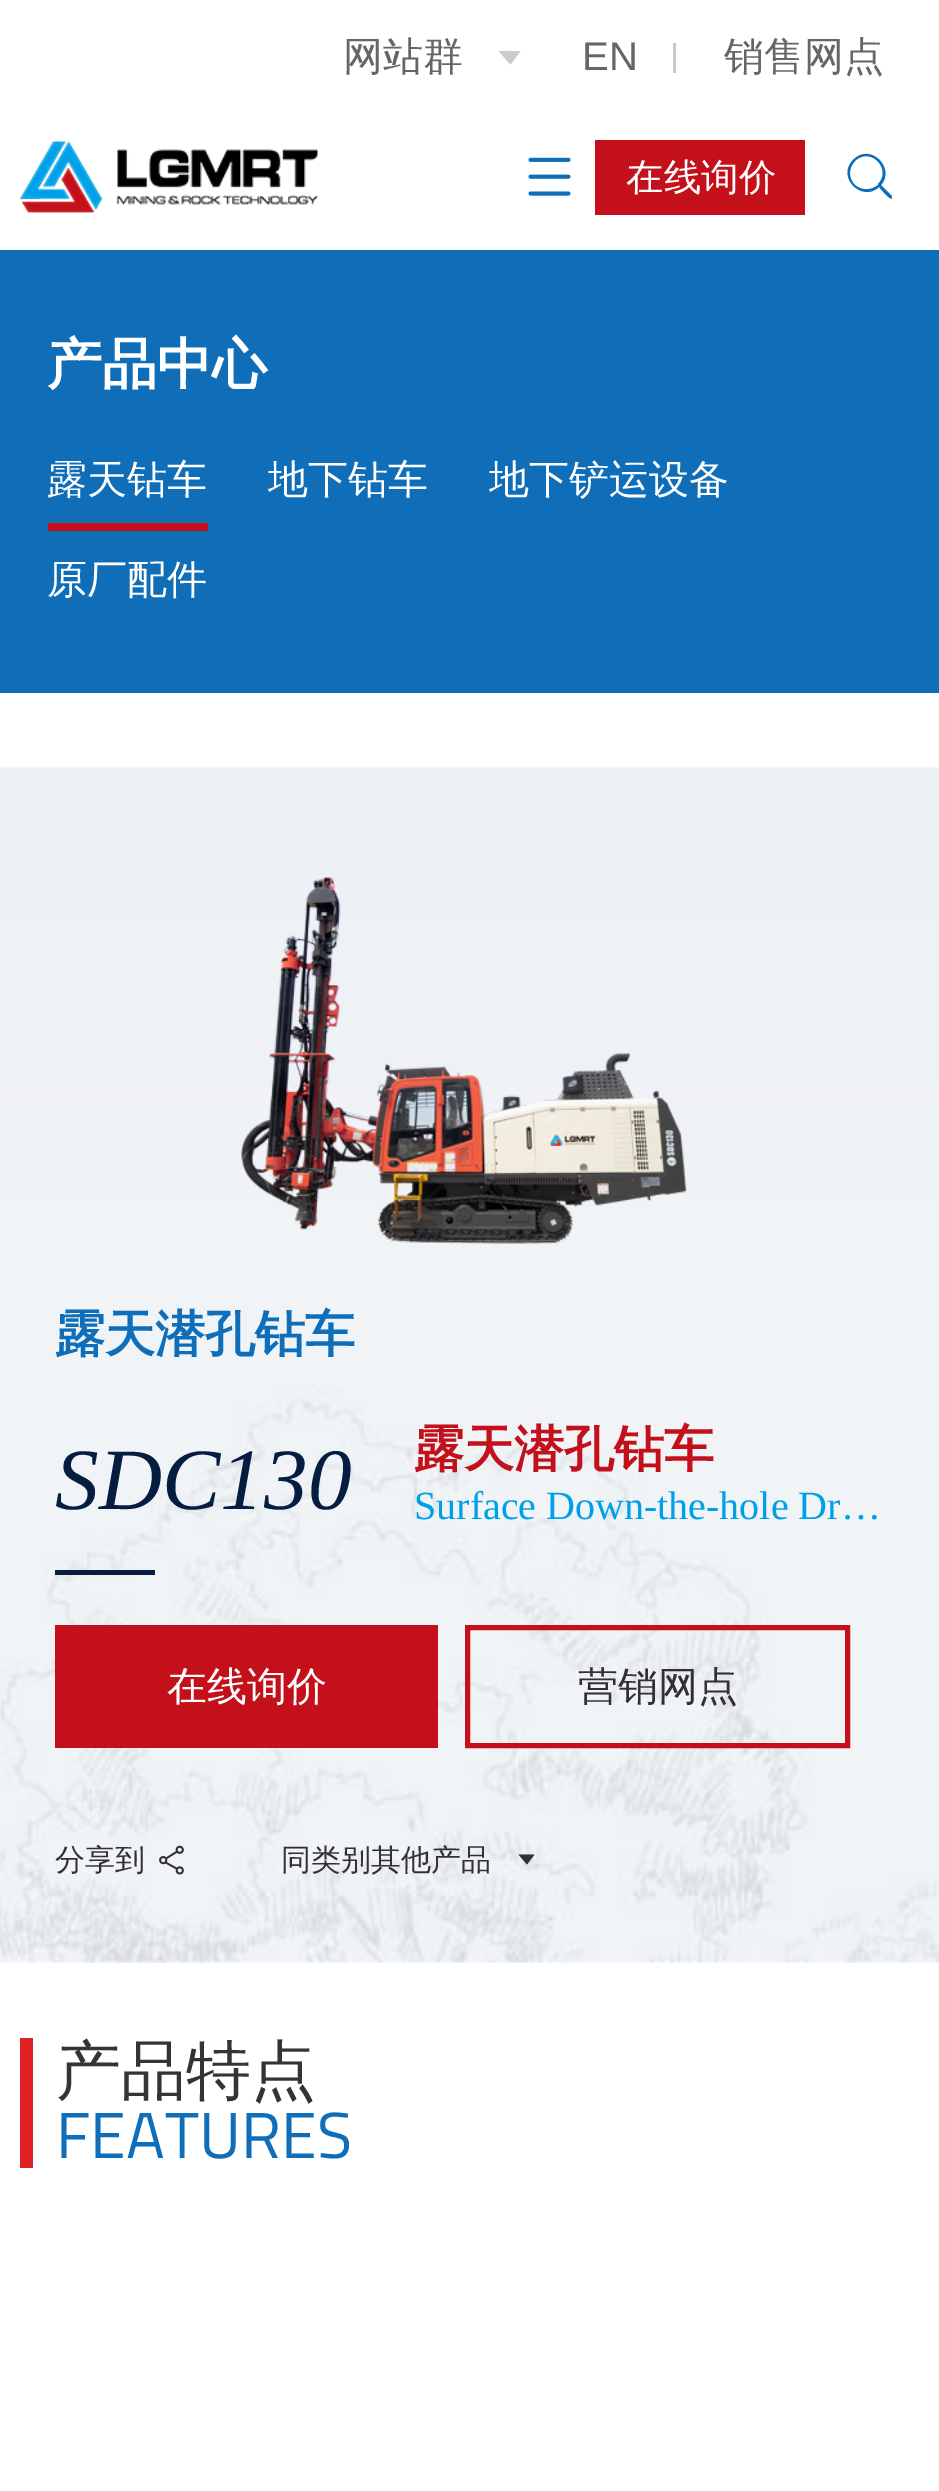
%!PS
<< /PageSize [939 2491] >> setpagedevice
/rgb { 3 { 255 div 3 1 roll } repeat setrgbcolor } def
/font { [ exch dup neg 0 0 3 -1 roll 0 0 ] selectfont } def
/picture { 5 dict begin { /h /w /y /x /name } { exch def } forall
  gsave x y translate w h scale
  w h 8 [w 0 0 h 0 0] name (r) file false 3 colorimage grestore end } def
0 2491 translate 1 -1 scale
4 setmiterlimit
255 255 255 rgb
0 0 939 2491 rectfill
203 203 203 rgb
510.5 64.5 moveto 498.5 51 lineto 520.5 51 lineto closepath 510.5 64.5 moveto 510.5 64.5 lineto closepath fill
202 202 202 rgb
673 43 3 30 rectfill
(img/1.rgb) 20 141 298 72 picture
(img/2.rgb) 528 157 43 39 picture
195 16 26 rgb
595 140 210 75 rectfill
15 110 185 rgb
892 196 moveto 881 185 lineto 896 168 870 142 853 160 curveto 836 177 862 203 879 187 curveto 886 195 lineto 889 197 891 200 892 198 curveto closepath 850 173 moveto 850 168 852 164 856 160 curveto 872 147 892 170 878 184 curveto 878 185 lineto 867 194 850 188 850 173 curveto closepath fill
16 110 184 rgb
0 250 939 443 rectfill
195 16 26 rgb
48 523 160 8 rectfill
(img/3.rgb) 0 767 939 1196 picture
(img/4.rgb) 241 877 446 367 picture
4 29 65 rgb
55 1570 100 5 rectfill
195 16 26 rgb
55 1625 383 123 rectfill
5 setlinewidth
467.5 1627.5 380 118 rectstroke
(img/5.rgb) 159 1845 25 30 picture
51 46 58 rgb
527 1864.5 moveto 518.5 1854.5 lineto 534.5 1854.5 lineto closepath 527 1864.5 moveto 527 1864.5 lineto closepath fill
224 33 37 rgb
20 2038 13 130 rectfill
/WenQuanYiZenHei-Medium 40 font
102 102 102 rgb
343 70 moveto (网站群) show
/LiberationSans-Regular 40 font
582 70 moveto (EN) show
/WenQuanYiZenHei-Medium 40 font
724 70 moveto (销售网点) show
/WenQuanYiZenHei-Medium 37.5 font
255 255 255 rgb
626 190 moveto (在线询价) show
/WenQuanYiZenHei-Bold 55 font
47 383 moveto (产品中心) show
/WenQuanYiZenHei-Medium 40 font
[
  [(露天钻车) 47 493]
  [(地下钻车) 268 493]
  [(地下铲运设备) 489 493]
  [(原厂配件) 47 593]
] { aload pop moveto show } forall
/WenQuanYiZenHei-Bold 50 font
15 110 185 rgb
55 1351 moveto (露天潜孔钻车) show
/LiberationSerif-Italic 87.5 font
4 29 65 rgb
55 1509 moveto (SDC130) show
/WenQuanYiZenHei-Bold 50 font
195 16 26 rgb
414 1466 moveto (露天潜孔钻车) show
/LiberationSerif-Regular 40 font
0 160 233 rgb
414 1519 moveto (Surface Down-the-hole Dr…) show
/WenQuanYiZenHei-Medium 40 font
255 255 255 rgb
167 1700 moveto (在线询价) show
51 46 58 rgb
578 1700 moveto (营销网点) show
/WenQuanYiZenHei-Medium 30 font
55 1870 moveto (分享到) show
281 1870 moveto (同类别其他产品) show
/WenQuanYiZenHei-Medium 65 font
52 52 52 rgb
56 2093 moveto (产品特点) show
/TitilliumWeb-Regular 65 font
15 110 185 rgb
56 2158 moveto (FEATURES) show
showpage
